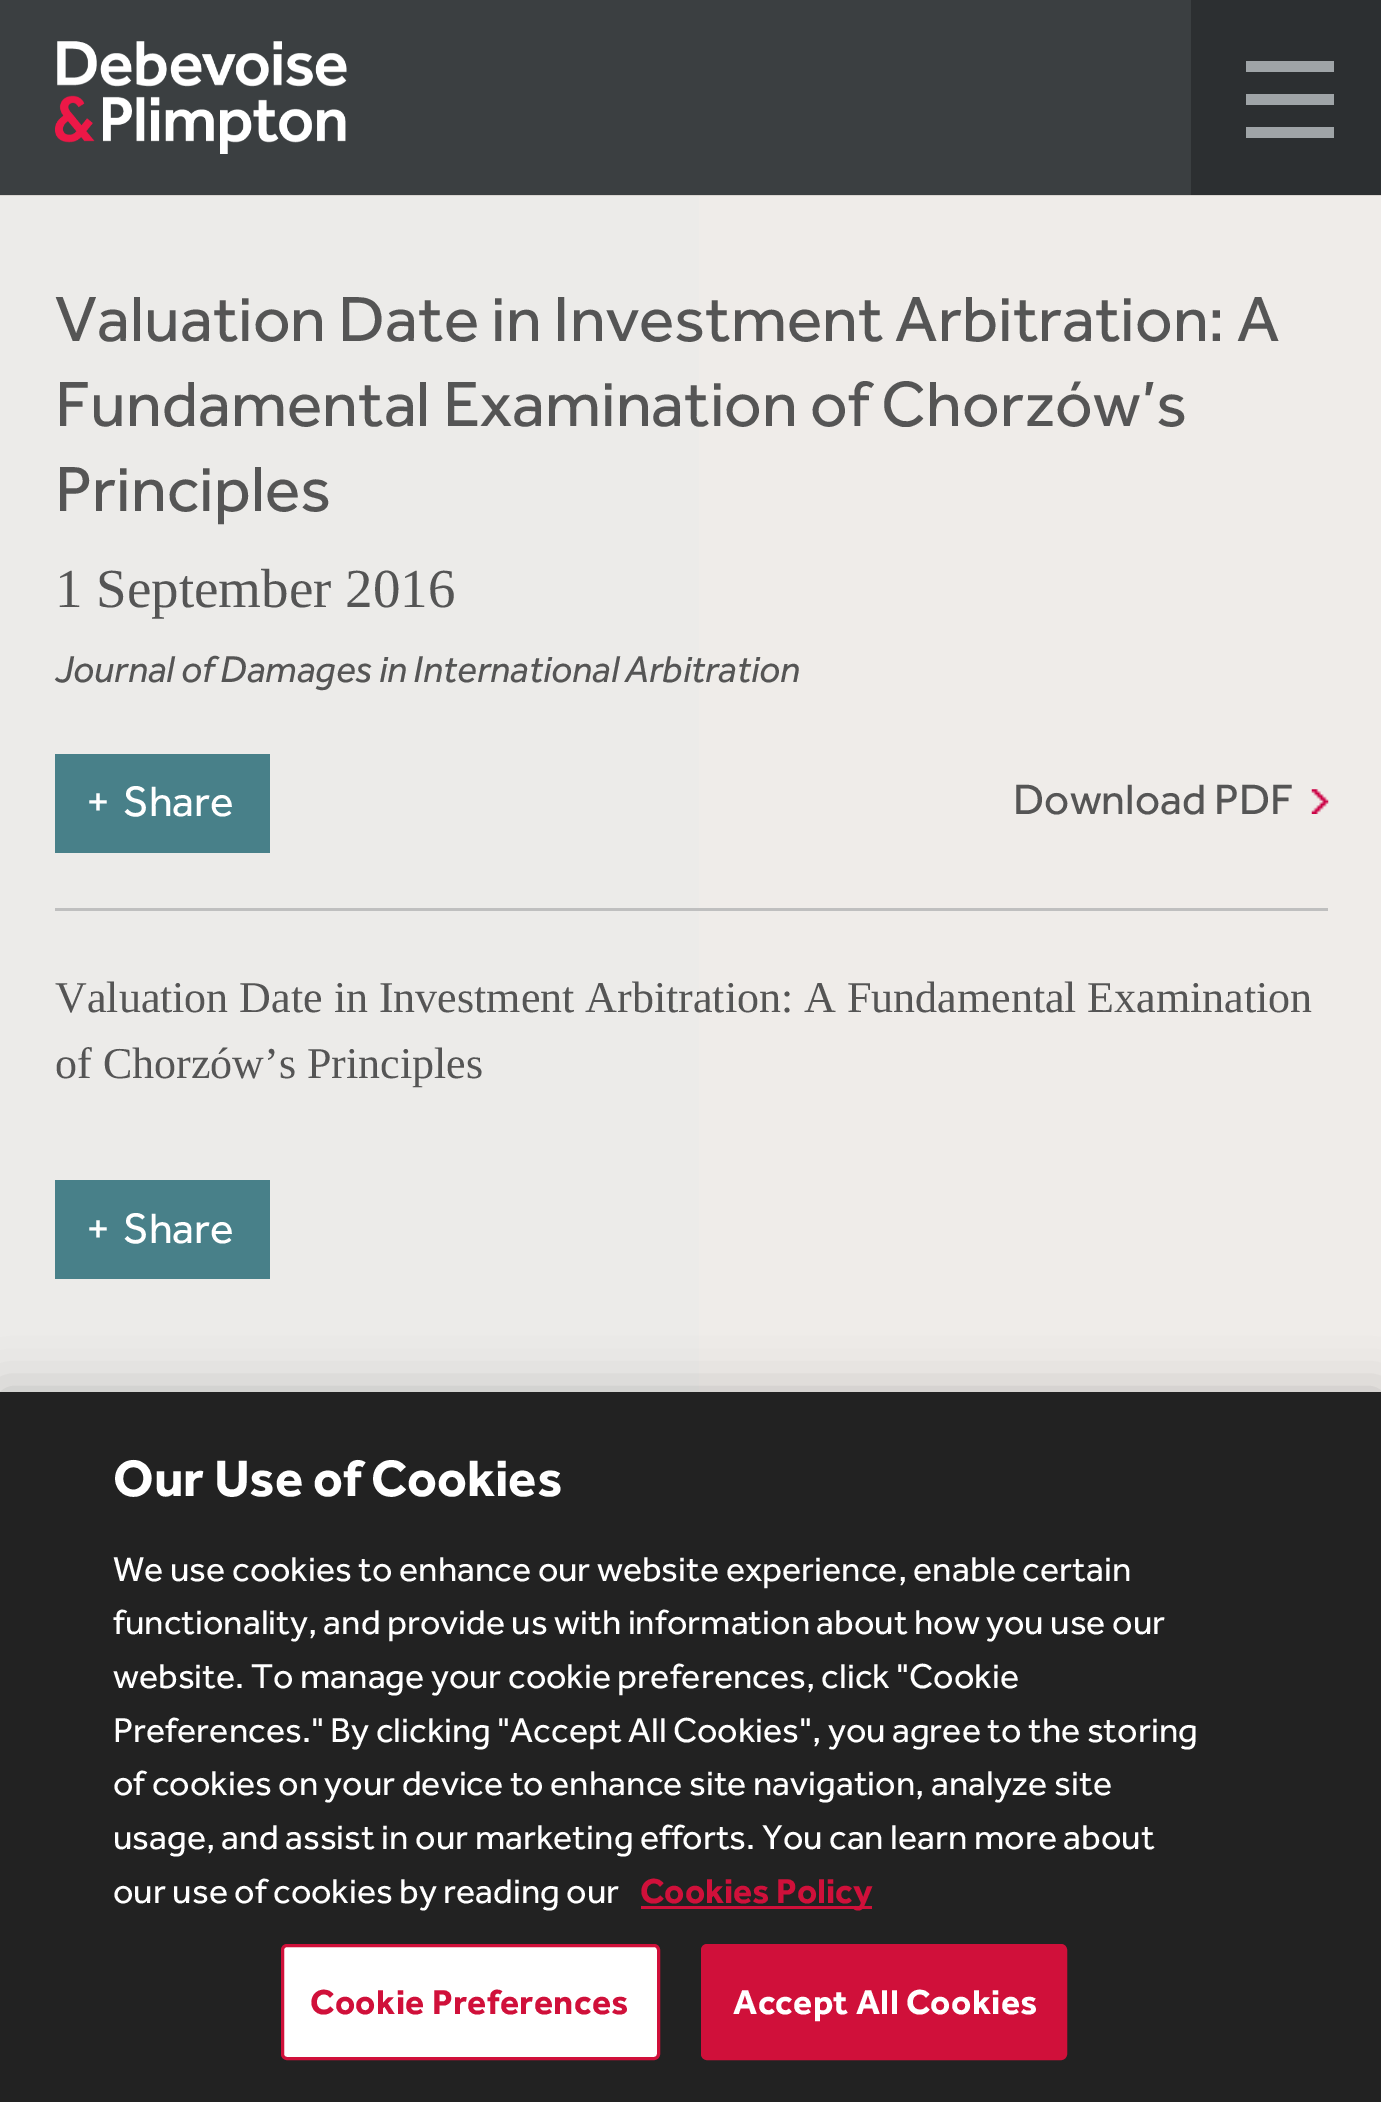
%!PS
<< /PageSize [1381 2102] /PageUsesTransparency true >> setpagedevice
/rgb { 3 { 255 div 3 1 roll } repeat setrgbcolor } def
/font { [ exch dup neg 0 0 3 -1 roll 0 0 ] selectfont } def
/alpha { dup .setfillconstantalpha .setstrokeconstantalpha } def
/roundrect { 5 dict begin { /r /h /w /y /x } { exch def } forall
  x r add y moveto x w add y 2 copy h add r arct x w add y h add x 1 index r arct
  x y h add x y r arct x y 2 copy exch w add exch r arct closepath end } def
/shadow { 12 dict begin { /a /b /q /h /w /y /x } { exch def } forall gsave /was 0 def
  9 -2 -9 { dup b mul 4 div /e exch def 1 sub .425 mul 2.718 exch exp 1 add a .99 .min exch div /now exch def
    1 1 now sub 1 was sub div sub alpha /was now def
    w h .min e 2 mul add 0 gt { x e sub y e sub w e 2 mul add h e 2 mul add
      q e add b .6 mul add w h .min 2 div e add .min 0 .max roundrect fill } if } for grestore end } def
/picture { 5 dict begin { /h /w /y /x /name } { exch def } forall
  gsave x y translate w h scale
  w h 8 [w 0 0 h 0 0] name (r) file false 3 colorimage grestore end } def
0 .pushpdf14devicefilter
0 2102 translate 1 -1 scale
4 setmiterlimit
239 236 233 rgb
0 0 1381 2102 rectfill
236 235 233 rgb
0 196 699 1196 rectfill
59 63 65 rgb
0 0 1191 195 rectfill
(img/1.rgb) 55 41 292 113 picture
[
  [1191 0 190 195 44 47 49]
  [1246 94 88 11 159 164 167]
  [1246 61 88 11 159 164 167]
  [1246 127 88 11 159 164 167]
  [0 195 1381 1 217 213 209]
  [55 754 215 99 72 128 137]
] { aload pop rgb rectfill } forall
(img/2.rgb) 1311 789 18 25 picture
191 191 191 rgb
55 908 1273 3 rectfill
72 128 137 rgb
55 1180 215 99 rectfill
0 0 0 rgb
0 1392 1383 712 0 25 0.2 shadow
34 34 34 rgb
0 1392 1381 710 rectfill
208 16 58 rgb
641 1906 231 3 rectfill
255 255 255 rgb
282.5 1945.5 376 113 4.5 roundrect gsave fill grestore
208 16 58 rgb
3 setlinewidth
stroke
702.5 1945.5 363 113 4.5 roundrect gsave fill grestore
stroke
/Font-Regular 66 font
85 85 85 rgb
[
  [(Valuation Date in Investment Arbitration: A) 55 341]
  [(Fundamental Examination of Chorzów’s) 55 426]
  [(Principles) 55 511]
] { aload pop moveto show } forall
/LiberationSerif-Regular 55 font
55 607 moveto (1 September 2016) show
/Font-Italic 38.5 font
55 682 moveto (Journal of Damages in International Arbitration) show
/Font-Regular 44 font
255 255 255 rgb
86 816 moveto (+) show
123 816 moveto (Share) show
85 85 85 rgb
1013 814 moveto (Download PDF) show
/LiberationSerif-Regular 44 font
55 1012 moveto (Valuation Date in Investment Arbitration: A Fundamental Examination) show
55 1078 moveto (of Chorzów’s Principles) show
/Font-Regular 44 font
255 255 255 rgb
86 1243 moveto (+) show
123 1243 moveto (Share) show
/Font-Bold 52.75 font
113 1496 moveto (Our Use of Cookies) show
/Font-Regular 35.75 font
[
  [(We use cookies to enhance our website experience, enable certain) 113 1581]
  [(functionality, and provide us with information about how you use our) 113 1634]
  [(website. To manage your cookie preferences, click "Cookie) 113 1688]
  [(Preferences." By clicking "Accept All Cookies", you agree to the storing) 113 1742]
  [(of cookies on your device to enhance site navigation, analyze site) 113 1795]
  [(usage, and assist in our marketing efforts. You can learn more about) 113 1849]
  [(our use of cookies by reading our) 113 1903]
] { aload pop moveto show } forall
/Font-Bold 35.75 font
208 16 58 rgb
640 1903 moveto (Cookies Policy) show
310 2014 moveto 0.4 0 (Cookie Preferences) ashow
255 255 255 rgb
733 2014 moveto 0.4 0 (Accept All Cookies) ashow
.poppdf14devicefilter showpage
